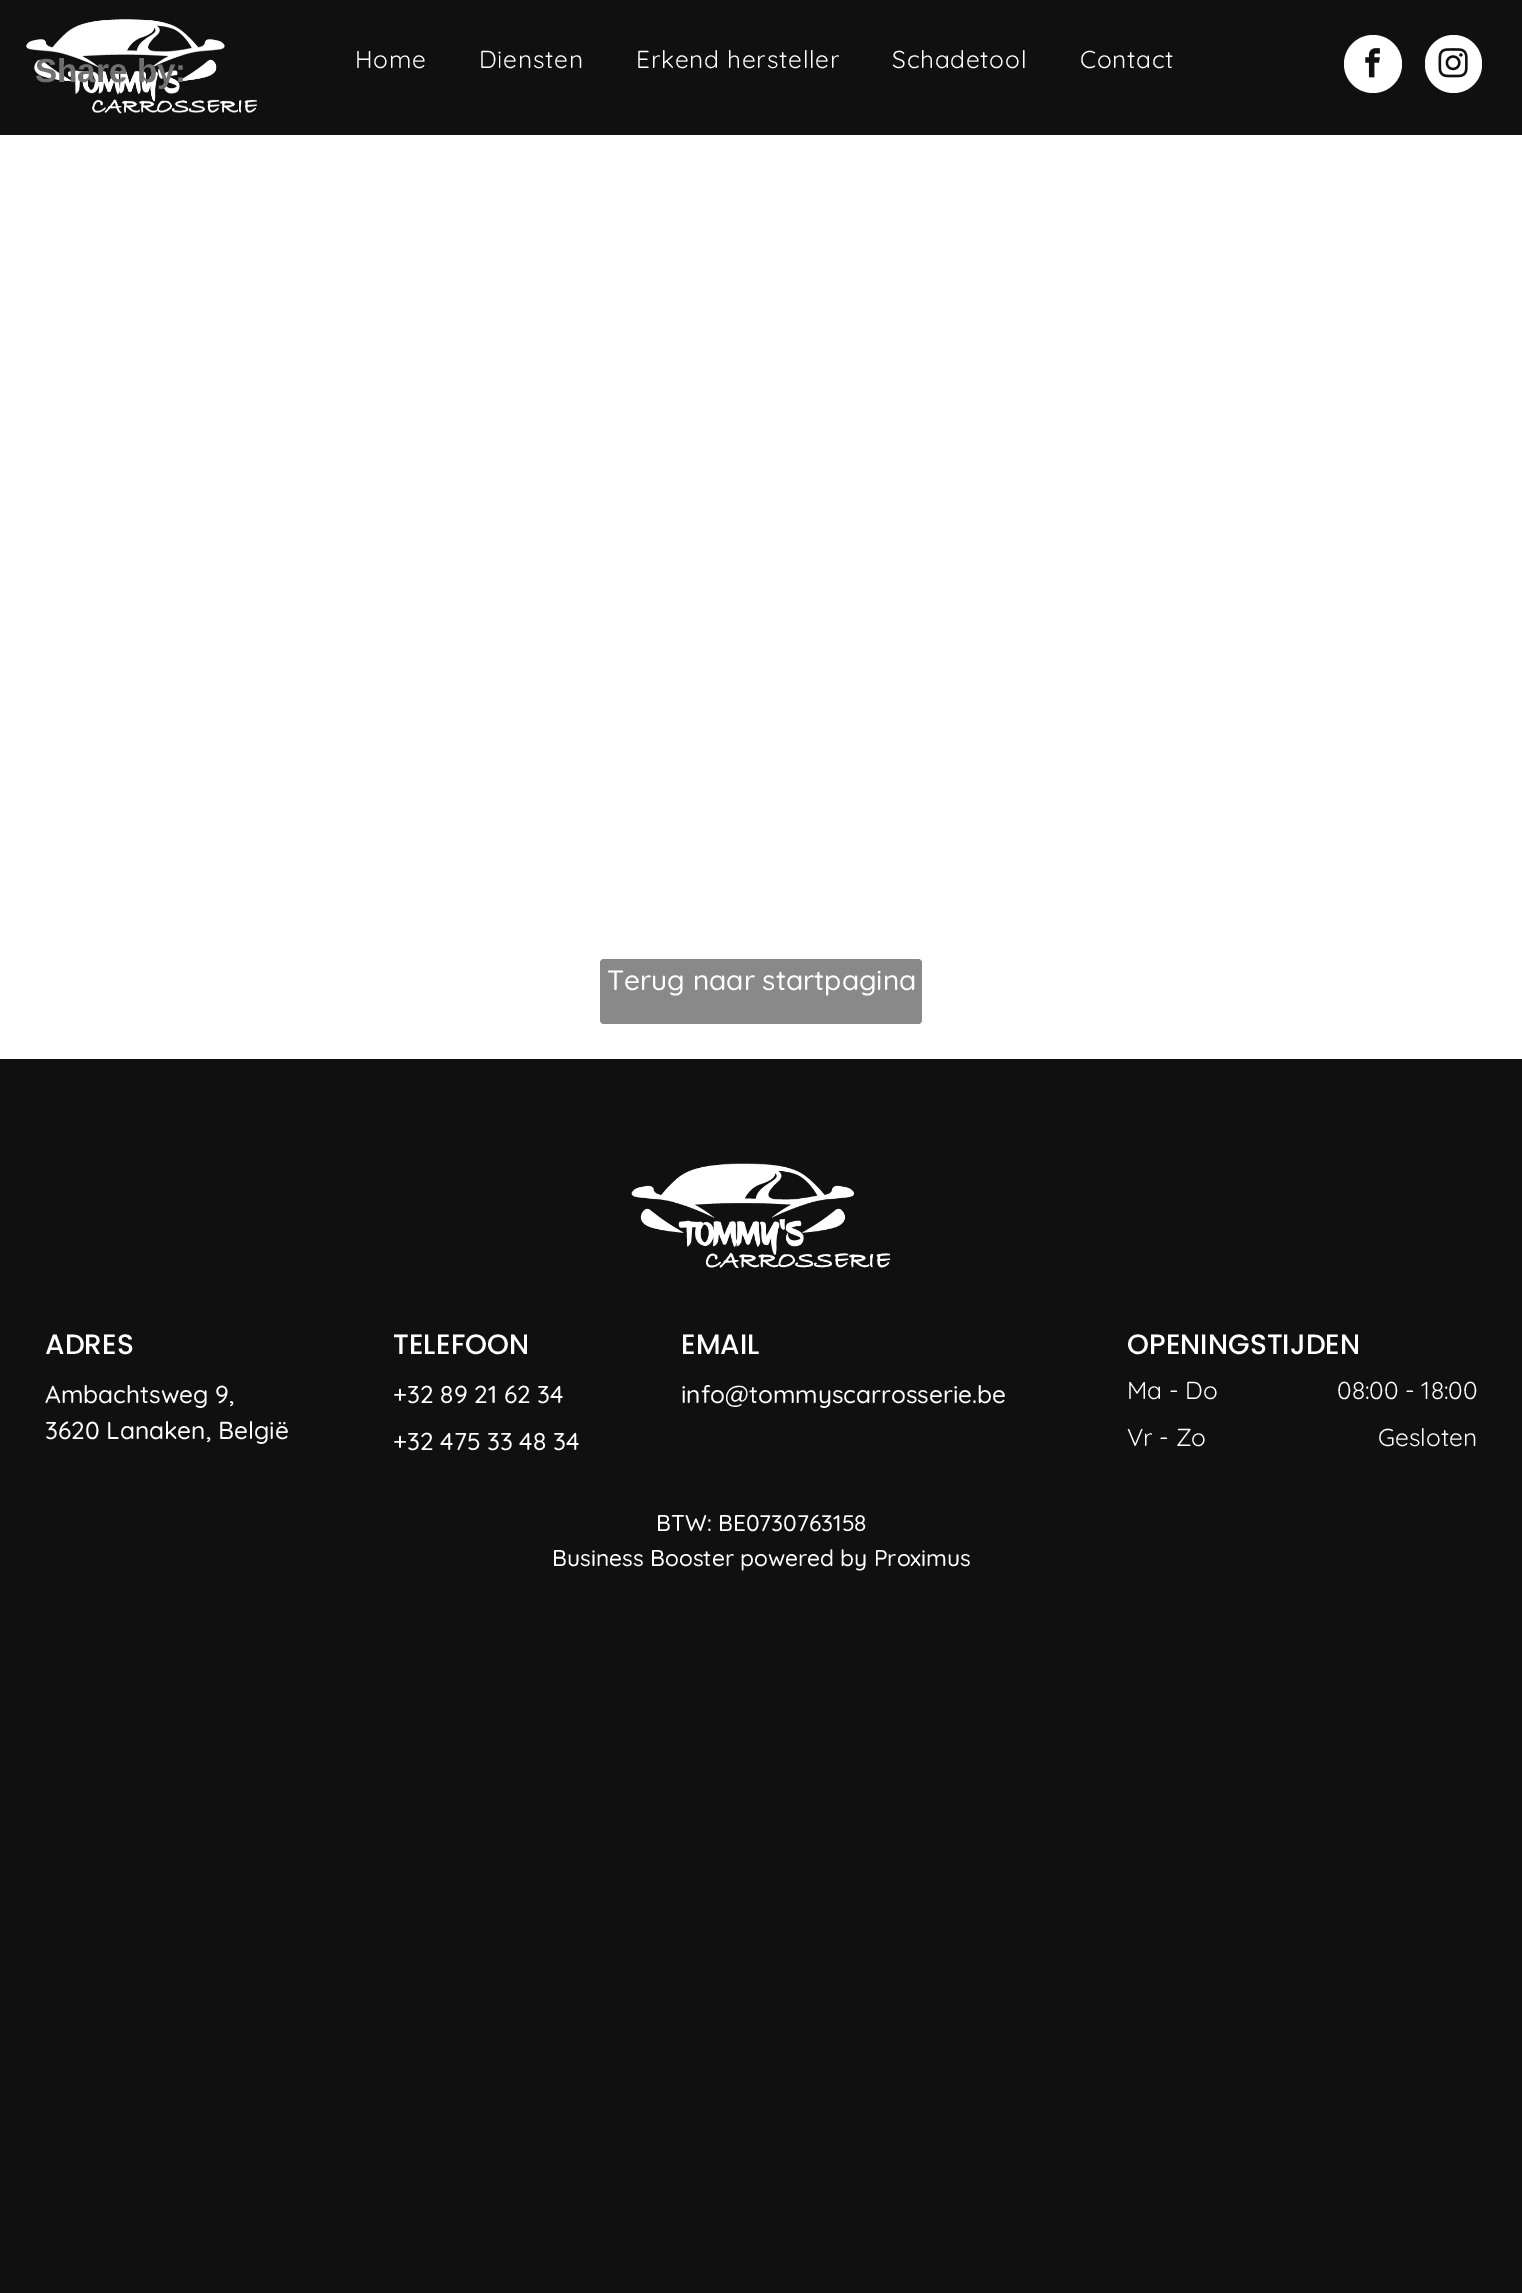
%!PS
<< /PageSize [1522 2293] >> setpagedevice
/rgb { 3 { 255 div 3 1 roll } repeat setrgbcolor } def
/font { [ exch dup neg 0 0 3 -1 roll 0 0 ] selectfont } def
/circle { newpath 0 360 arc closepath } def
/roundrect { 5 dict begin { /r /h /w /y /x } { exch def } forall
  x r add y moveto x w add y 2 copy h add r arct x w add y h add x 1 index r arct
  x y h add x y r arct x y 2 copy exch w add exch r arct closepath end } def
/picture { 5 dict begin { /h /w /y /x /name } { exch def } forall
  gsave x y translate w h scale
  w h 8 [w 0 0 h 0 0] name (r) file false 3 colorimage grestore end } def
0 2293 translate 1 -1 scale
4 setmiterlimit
16 16 16 rgb
0 0 1522 2293 rectfill
(img/1.rgb) 26 19 231 95 picture
255 255 255 rgb
1373 64 29 circle fill
(img/2.rgb) 1365 48 15 30 picture
1425 35 57 58 28.5 roundrect fill
(img/3.rgb) 1438 48 30 30 picture
0 135 1522 924 rectfill
137 137 137 rgb
600 959 322 65 4 roundrect fill
(img/4.rgb) 631 1163 260 106 picture
/Quicksand-Regular 24.5 font
255 255 255 rgb
355 68 moveto 0.75 0 (Home) ashow
479 68 moveto 0.75 0 (Diensten) ashow
636 68 moveto 0.75 0 (Erkend hersteller) ashow
892 68 moveto 0.75 0 (Schadetool) ashow
1080 68 moveto 0.75 0 (Contact) ashow
/Quicksand-Medium 28 font
607 990 moveto (Terug naar startpagina) show
/Poppins-Medium 28 font
45 1354 moveto (ADRES) show
/Quicksand-Medium 24.5 font
45 1403 moveto (Ambachtsweg 9,) show
45 1439 moveto (3620 Lanaken, België) show
/Poppins-Medium 28 font
393 1354 moveto (TELEFOON) show
/Quicksand-Medium 24.5 font
393 1403 moveto (+32 89 21 62 34) show
393 1450 moveto (+32 475 33 48 34) show
/Poppins-Medium 28 font
681 1354 moveto (EMAIL) show
/Quicksand-Medium 24.5 font
681 1403 moveto (info@tommyscarrosserie.be) show
/Poppins-Medium 28 font
1127 1354 moveto (OPENINGSTIJDEN) show
/Quicksand-Regular 24.5 font
[
  [(Ma - Do) 1127 1399]
  [(08:00 - 18:00) 1337 1399]
  [(Vr - Zo) 1127 1446]
  [(Gesloten) 1378 1446]
] { aload pop moveto show } forall
/Quicksand-Medium 22.75 font
656 1531 moveto (BTW: BE0730763158) show
552 1566 moveto (Business Booster powered by Proximus) show
/LiberationSans-Bold 33.25 font
112 112 112 rgb
35 82 moveto (Share by:) show
showpage
